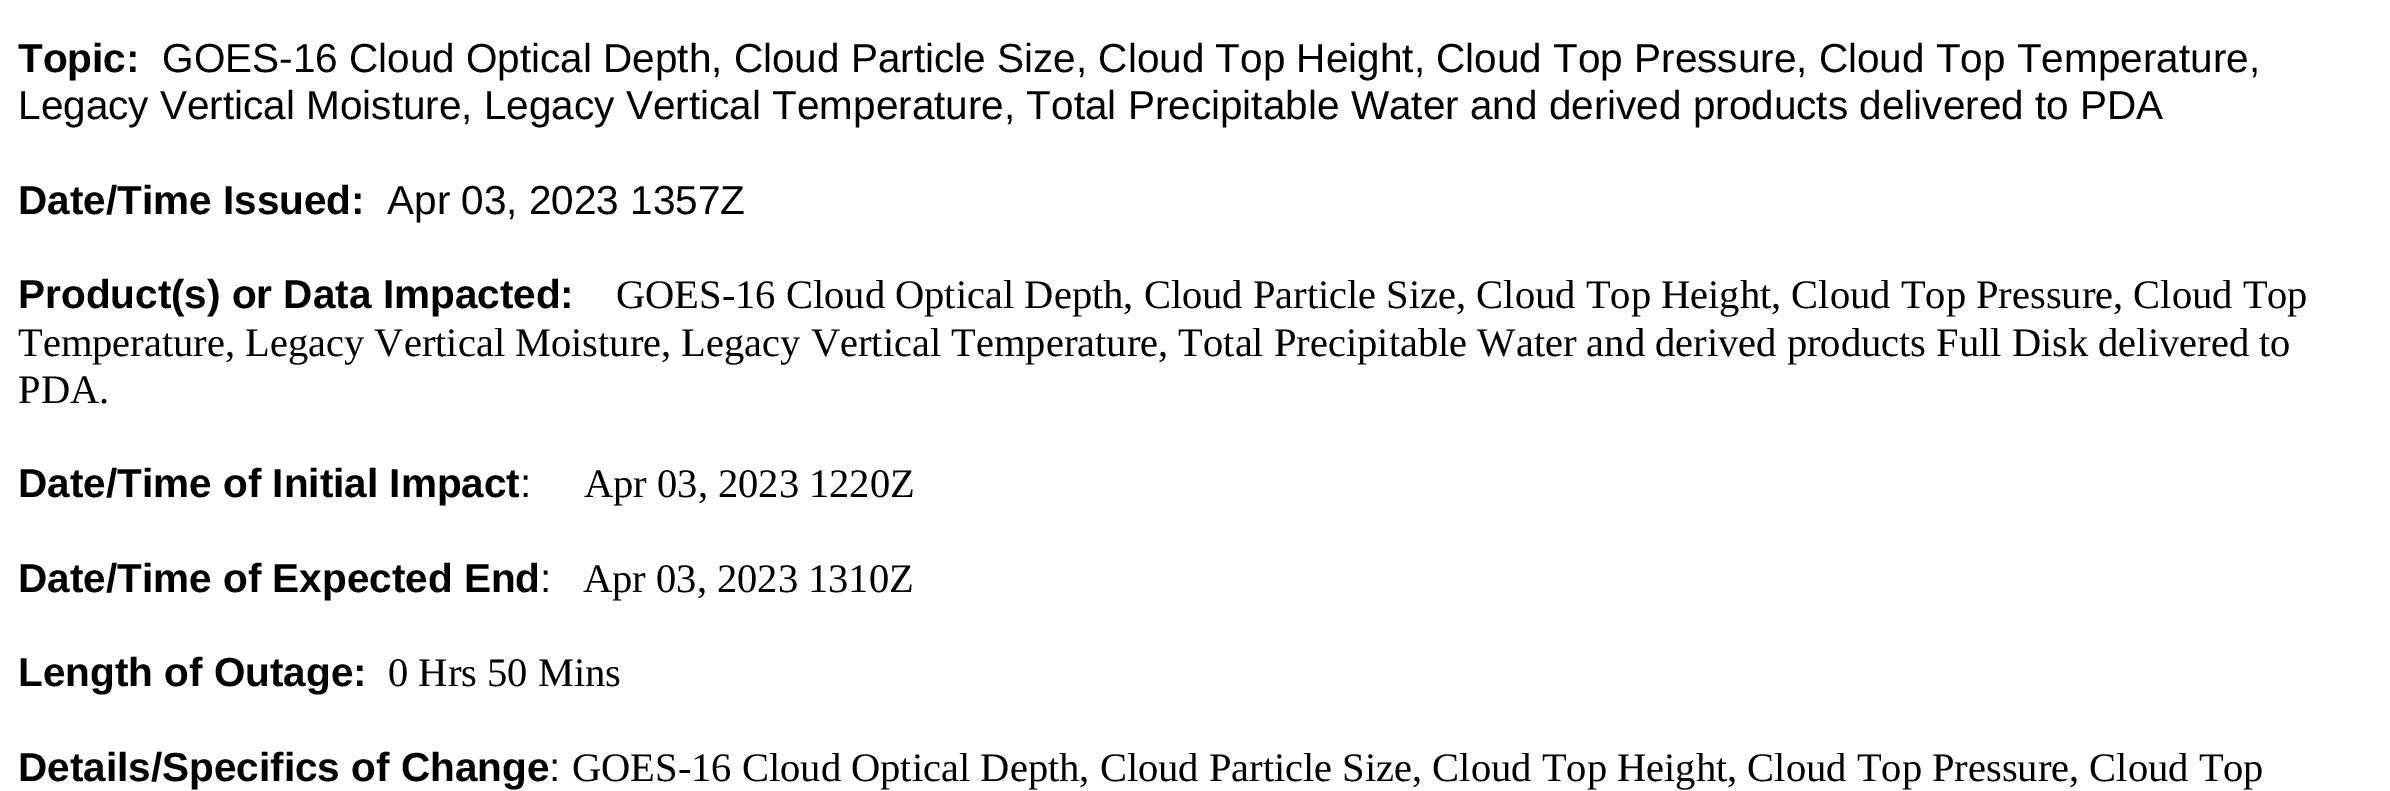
%!PS
<< /PageSize [2390 791] >> setpagedevice
/rgb { 3 { 255 div 3 1 roll } repeat setrgbcolor } def
/font { [ exch dup neg 0 0 3 -1 roll 0 0 ] selectfont } def
0 791 translate 1 -1 scale
4 setmiterlimit
255 255 255 rgb
0 0 2390 791 rectfill
/LiberationSans-Bold 40.5 font
0 0 0 rgb
18 72 moveto (Topic:) show
/LiberationSans-Regular 40.5 font
162 72 moveto (GOES-16 Cloud Optical Depth, Cloud Particle Size, Cloud Top Height, Cloud Top Pressure, Cloud Top Temperature,) show
18 119 moveto (Legacy Vertical Moisture, Legacy Vertical Temperature, Total Precipitable Water and derived products delivered to PDA) show
/LiberationSans-Bold 40.5 font
18 214 moveto (Date/Time Issued:) show
/LiberationSans-Regular 40.5 font
387 214 moveto (Apr 03, 2023 1357Z) show
/LiberationSans-Bold 40.5 font
18 308 moveto (Product\(s\) or Data Impacted:) show
/LiberationSerif-Regular 40.5 font
[
  [(GOES-16 Cloud Optical Depth, Cloud Particle Size, Cloud Top Height, Cloud Top Pressure, Cloud Top) 616 308]
  [(Temperature, Legacy Vertical Moisture, Legacy Vertical Temperature, Total Precipitable Water and derived products Full Disk delivered to) 18 356]
  [(PDA.) 18 403]
] { aload pop moveto show } forall
/LiberationSans-Bold 40.5 font
18 497 moveto (Date/Time of Initial Impact) show
/LiberationSans-Regular 40.5 font
520 497 moveto (:) show
/LiberationSerif-Regular 40.5 font
584 497 moveto (Apr 03, 2023 1220Z) show
/LiberationSans-Bold 40.5 font
18 592 moveto (Date/Time of Expected End) show
/LiberationSans-Regular 40.5 font
540 592 moveto (:) show
/LiberationSerif-Regular 40.5 font
583 592 moveto (Apr 03, 2023 1310Z) show
/LiberationSans-Bold 40.5 font
18 686 moveto (Length of Outage:) show
/LiberationSerif-Regular 40.5 font
388 686 moveto (0 Hrs 50 Mins) show
/LiberationSans-Bold 40.5 font
18 781 moveto (Details/Specifics of Change) show
/LiberationSans-Regular 40.5 font
549 781 moveto (:) show
/LiberationSerif-Regular 40.5 font
572 781 moveto (GOES-16 Cloud Optical Depth, Cloud Particle Size, Cloud Top Height, Cloud Top Pressure, Cloud Top) show
showpage
